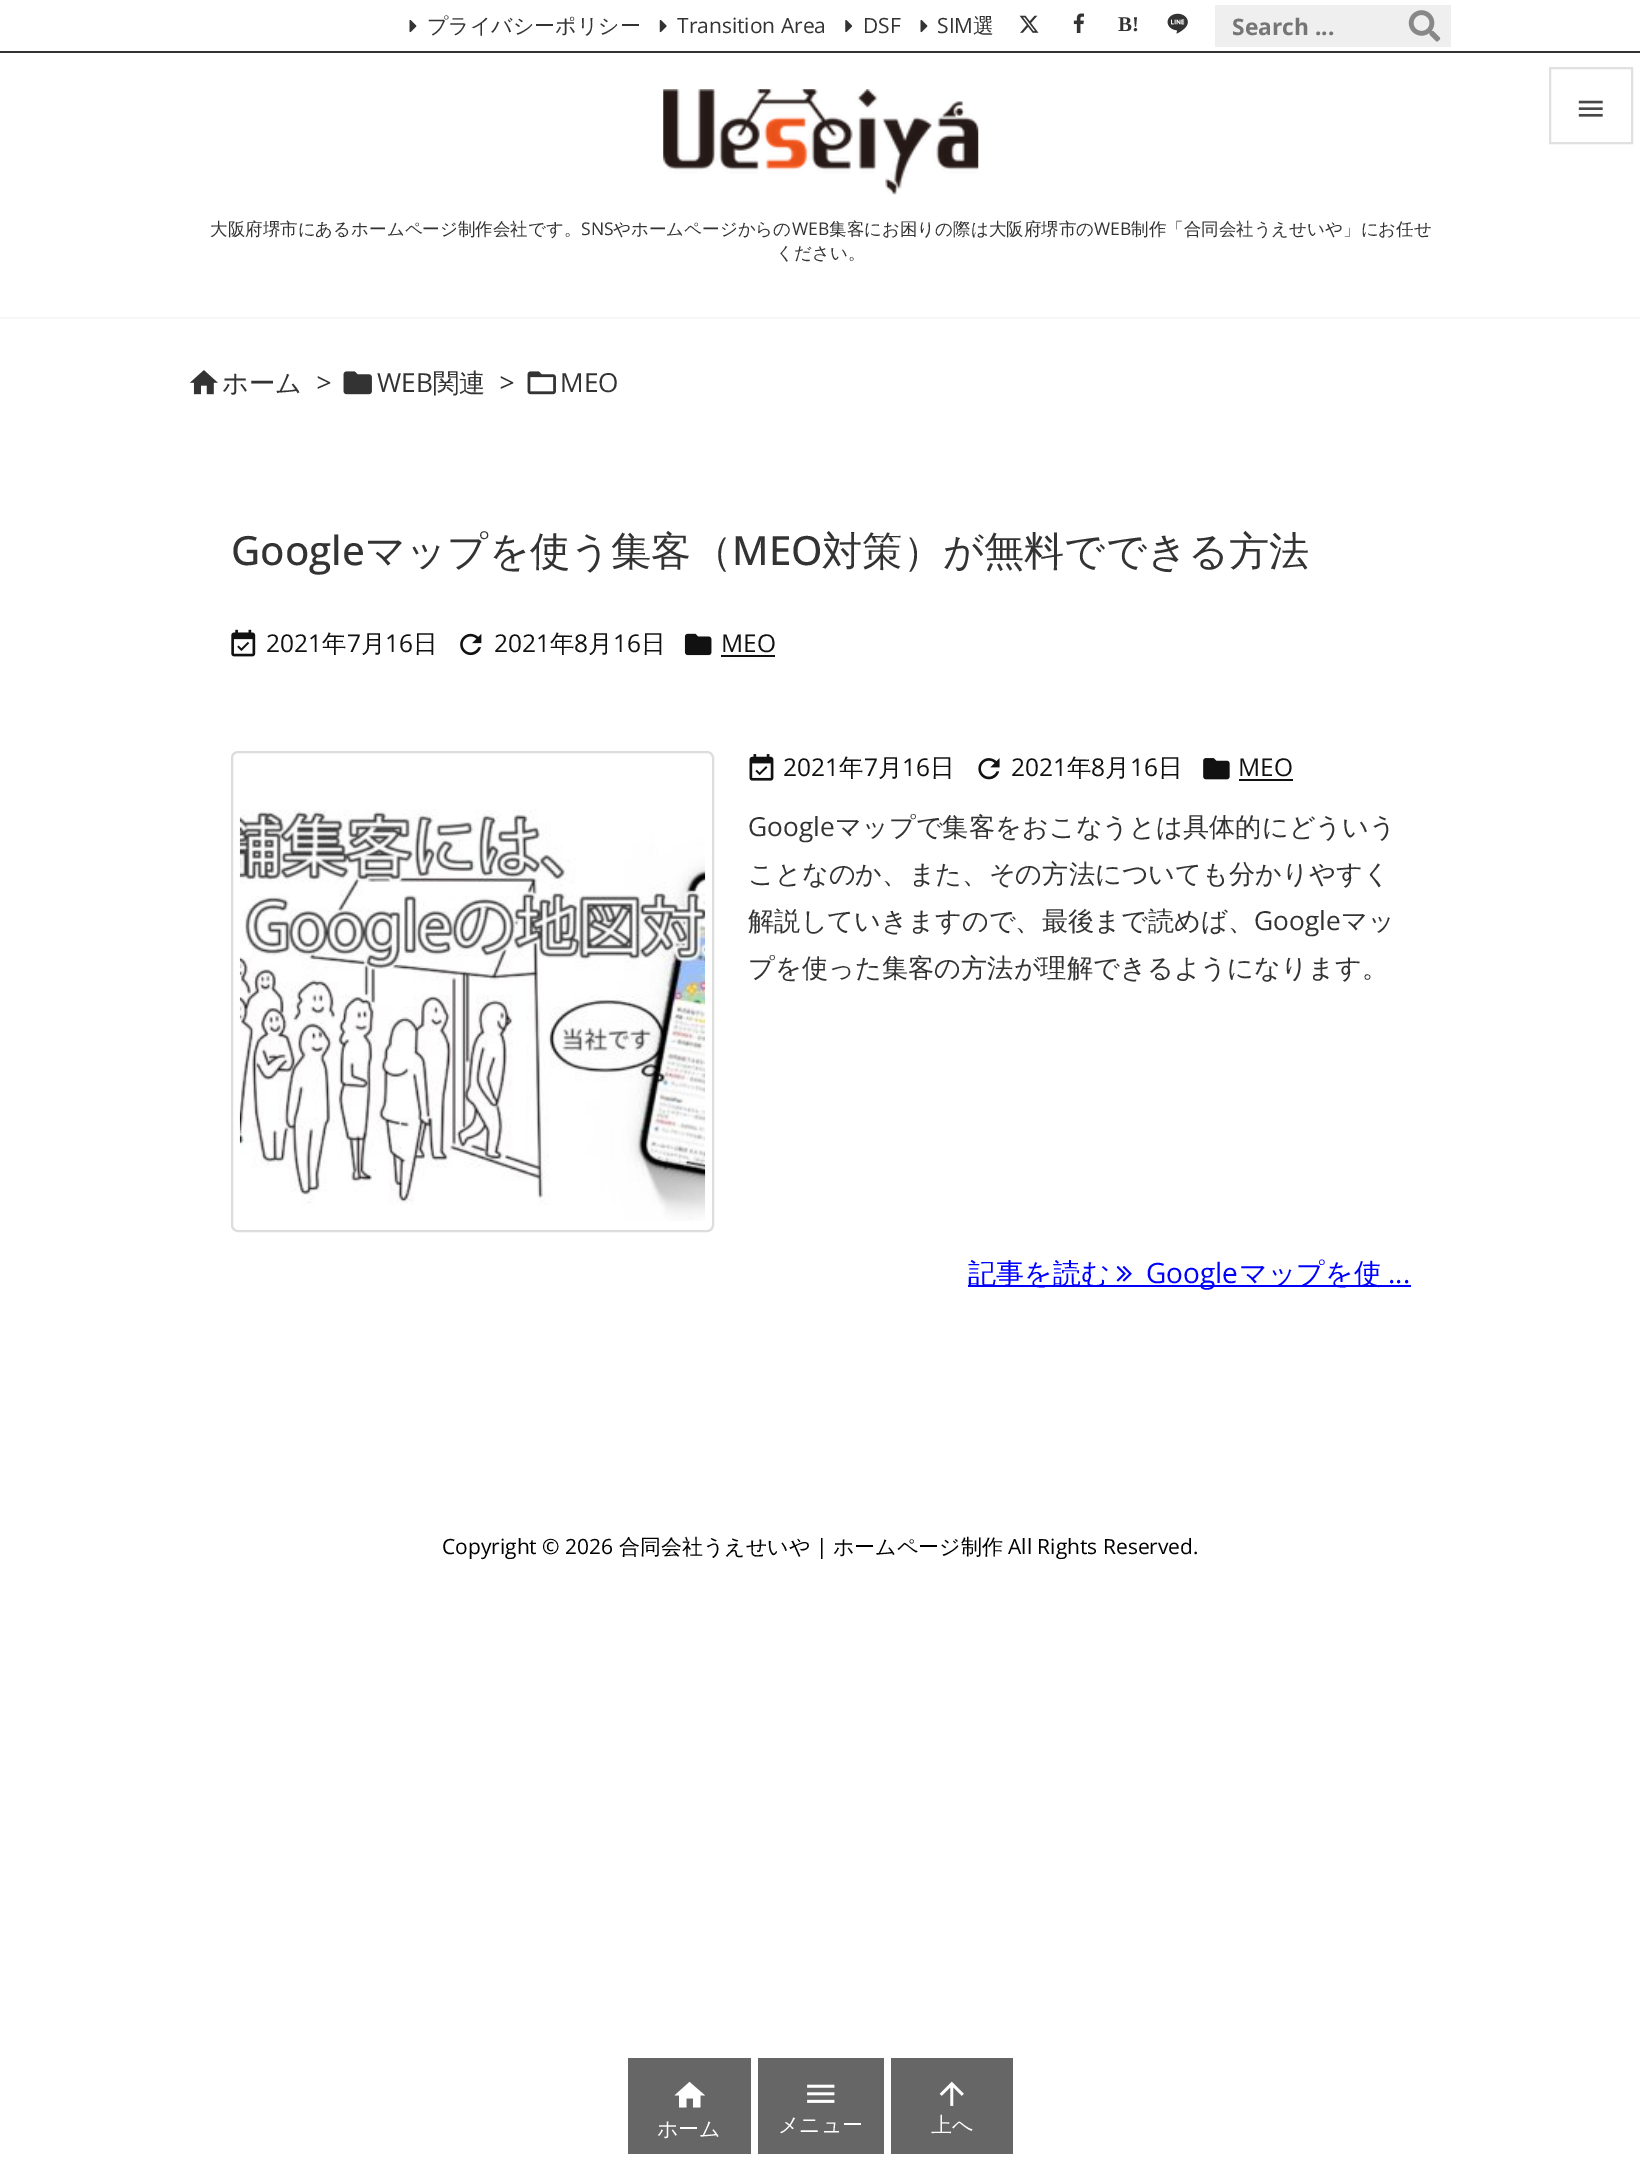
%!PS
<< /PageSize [1640 2178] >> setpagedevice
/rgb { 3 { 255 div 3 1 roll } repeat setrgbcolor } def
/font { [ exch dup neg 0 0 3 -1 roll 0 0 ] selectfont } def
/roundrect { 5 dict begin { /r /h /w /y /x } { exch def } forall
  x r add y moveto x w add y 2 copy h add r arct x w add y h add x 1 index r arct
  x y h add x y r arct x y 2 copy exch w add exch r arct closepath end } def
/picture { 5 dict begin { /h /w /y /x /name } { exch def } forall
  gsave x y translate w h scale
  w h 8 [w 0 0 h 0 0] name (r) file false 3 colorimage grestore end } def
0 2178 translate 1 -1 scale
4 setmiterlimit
255 255 255 rgb
0 0 1640 2178 rectfill
51 51 51 rgb
0 51 1640 2 rectfill
(img/1.rgb) 409 19 8 14 picture
(img/2.rgb) 659 19 8 14 picture
(img/3.rgb) 845 20 8 13 picture
(img/1.rgb) 920 19 8 14 picture
(img/4.rgb) 1019 15 20 18 picture
(img/5.rgb) 1073 13 11 20 picture
(img/6.rgb) 1167 13 21 21 picture
239 239 239 rgb
1215 5 236 42 rectfill
(img/7.rgb) 1408 10 33 32 picture
247 247 247 rgb
0 317 1640 2 rectfill
224 224 224 rgb
2 setlinewidth
1550 68 82 75 rectstroke
(img/8.rgb) 1578 100 25 17 picture
(img/9.rgb) 663 89 316 106 picture
(img/10.rgb) 189 370 29 25 picture
(img/11.rgb) 343 371 29 24 picture
(img/12.rgb) 527 371 29 24 picture
(img/13.rgb) 231 629 25 28 picture
(img/14.rgb) 460 633 22 23 picture
(img/15.rgb) 684 633 28 23 picture
17 17 17 rgb
721 655 54 2 rectfill
221 221 221 rgb
232 752 481 479 6 roundrect stroke
(img/16.rgb) 239 809 467 412 picture
(img/17.rgb) 749 754 25 27 picture
(img/18.rgb) 978 758 22 22 picture
(img/19.rgb) 1203 758 27 22 picture
17 17 17 rgb
1239 779 54 2 rectfill
0 0 255 rgb
968 1285 443 2 rectfill
(img/20.rgb) 1116 1266 16 16 picture
102 102 102 rgb
628 2058 123 96 rectfill
255 255 255 rgb
686.5 2107.5 moveto 679 2107.5 lineto 679 2095.5 lineto 674.5 2095.5 lineto 689.5 2082 lineto 705 2095.5 lineto 700.5 2095.5 lineto 700.5 2107.5 lineto 693 2107.5 lineto 693 2098.5 lineto 686.5 2098.5 lineto closepath fill
102 102 102 rgb
758 2058 126 96 rectfill
(img/21.rgb) 807 2084 28 19 picture
891 2058 122 96 rectfill
(img/22.rgb) 939 2081 25 25 picture
/WenQuanYiZenHei-Medium 21 font
51 51 51 rgb
427 33 moveto (プライバシーポリシー) show
/OpenSans-Regular 21 font
[
  [(Transition Area) 677 33]
  [(DSF) 863 33]
  [(SIM) 937 33]
] { aload pop moveto show } forall
/WenQuanYiZenHei-Medium 21 font
973 33 moveto (選) show
/LiberationSerif-Bold 21 font
1118 31 moveto (B!) show
/OpenSans-Bold 22.75 font
117 117 117 rgb
1232 35 moveto (Search ...) show
/WenQuanYiZenHei-Medium 17.5 font
51 51 51 rgb
210 235 moveto (大阪府堺市にあるホームページ制作会社です。) show
/OpenSans-Regular 17.5 font
581 235 moveto (SNS) show
/WenQuanYiZenHei-Medium 17.5 font
613 235 moveto (やホームページからの) show
/OpenSans-Regular 17.5 font
792 235 moveto (WEB) show
/WenQuanYiZenHei-Medium 17.5 font
829 235 moveto (集客にお困りの際は大阪府堺市の) show
/OpenSans-Regular 17.5 font
1094 235 moveto (WEB) show
/WenQuanYiZenHei-Medium 17.5 font
1131 235 moveto (制作「合同会社うえせいや」にお任せ) show
776 259 moveto (ください。) show
/WenQuanYiZenHei-Medium 26.25 font
222 392 moveto (ホーム) show
/OpenSans-Italic 26.25 font
316 392 moveto (>) show
/OpenSans-Regular 26.25 font
377 392 moveto (WEB) show
/WenQuanYiZenHei-Medium 26.25 font
433 392 moveto (関連) show
/OpenSans-Italic 26.25 font
499 392 moveto (>) show
/OpenSans-Regular 26.25 font
560 392 moveto (MEO) show
/OpenSans-Medium 40.25 font
231 565 moveto (Google) show
/WenQuanYiZenHei-Medium 40.25 font
365 565 moveto (マップを使う集客（) show
/OpenSans-Medium 40.25 font
732 565 moveto (MEO) show
/WenQuanYiZenHei-Medium 40.25 font
822 565 moveto (対策）が無料でできる方法) show
/OpenSans-Regular 24.5 font
17 17 17 rgb
266 652 moveto (2021) show
/WenQuanYiZenHei-Medium 24.5 font
322 652 moveto (年) show
/OpenSans-Regular 24.5 font
347 652 moveto (7) show
/WenQuanYiZenHei-Medium 24.5 font
361 652 moveto (月) show
/OpenSans-Regular 24.5 font
385 652 moveto (16) show
/WenQuanYiZenHei-Medium 24.5 font
413 652 moveto (日) show
/OpenSans-Regular 24.5 font
494 652 moveto (2021) show
/WenQuanYiZenHei-Medium 24.5 font
550 652 moveto (年) show
/OpenSans-Regular 24.5 font
574 652 moveto (8) show
/WenQuanYiZenHei-Medium 24.5 font
588 652 moveto (月) show
/OpenSans-Regular 24.5 font
613 652 moveto (16) show
/WenQuanYiZenHei-Medium 24.5 font
641 652 moveto (日) show
/OpenSans-Regular 24.5 font
721 652 moveto (MEO) show
783 776 moveto (2021) show
/WenQuanYiZenHei-Medium 24.5 font
839 776 moveto (年) show
/OpenSans-Regular 24.5 font
864 776 moveto (7) show
/WenQuanYiZenHei-Medium 24.5 font
878 776 moveto (月) show
/OpenSans-Regular 24.5 font
902 776 moveto (16) show
/WenQuanYiZenHei-Medium 24.5 font
930 776 moveto (日) show
/OpenSans-Regular 24.5 font
1011 776 moveto (2021) show
/WenQuanYiZenHei-Medium 24.5 font
1067 776 moveto (年) show
/OpenSans-Regular 24.5 font
1091 776 moveto (8) show
/WenQuanYiZenHei-Medium 24.5 font
1105 776 moveto (月) show
/OpenSans-Regular 24.5 font
1130 776 moveto (16) show
/WenQuanYiZenHei-Medium 24.5 font
1158 776 moveto (日) show
/OpenSans-Regular 24.5 font
1238 776 moveto (MEO) show
/OpenSans-Regular 26.25 font
51 51 51 rgb
748 836 moveto (Google) show
/WenQuanYiZenHei-Medium 26.25 font
[
  [(マップで集客をおこなうとは具体的にどういう) 835 836]
  [(ことなのか、また、その方法についても分かりやすく) 748 883]
  [(解説していきますので、最後まで読めば、) 748 930]
] { aload pop moveto show } forall
/OpenSans-Regular 26.25 font
1254 930 moveto (Google) show
/WenQuanYiZenHei-Medium 26.25 font
1341 930 moveto (マッ) show
748 977 moveto (プを使った集客の方法が理解できるようになります。) show
/WenQuanYiZenHei-Medium 28 font
0 0 255 rgb
968 1283 moveto (記事を読む) show
/OpenSans-Regular 28 font
1146 1283 moveto (Google) show
/WenQuanYiZenHei-Medium 28 font
1239 1283 moveto (マップを使) show
/OpenSans-Regular 28 font
1388 1283 moveto (...) show
/OpenSans-Regular 21 font
0 0 0 rgb
442 1554 moveto (Copyright © 2026) show
/WenQuanYiZenHei-Medium 21 font
619 1554 moveto (合同会社うえせいや) show
/OpenSans-Regular 21 font
816 1554 moveto (|) show
/WenQuanYiZenHei-Medium 21 font
833 1554 moveto (ホームページ制作) show
/OpenSans-Regular 21 font
1008 1554 moveto (All Rights Reserved.) show
/WenQuanYiZenHei-Medium 21 font
255 255 255 rgb
[
  [(ホーム) 657 2136]
  [(メニュー) 778 2132]
  [(上へ) 931 2132]
] { aload pop moveto show } forall
showpage
